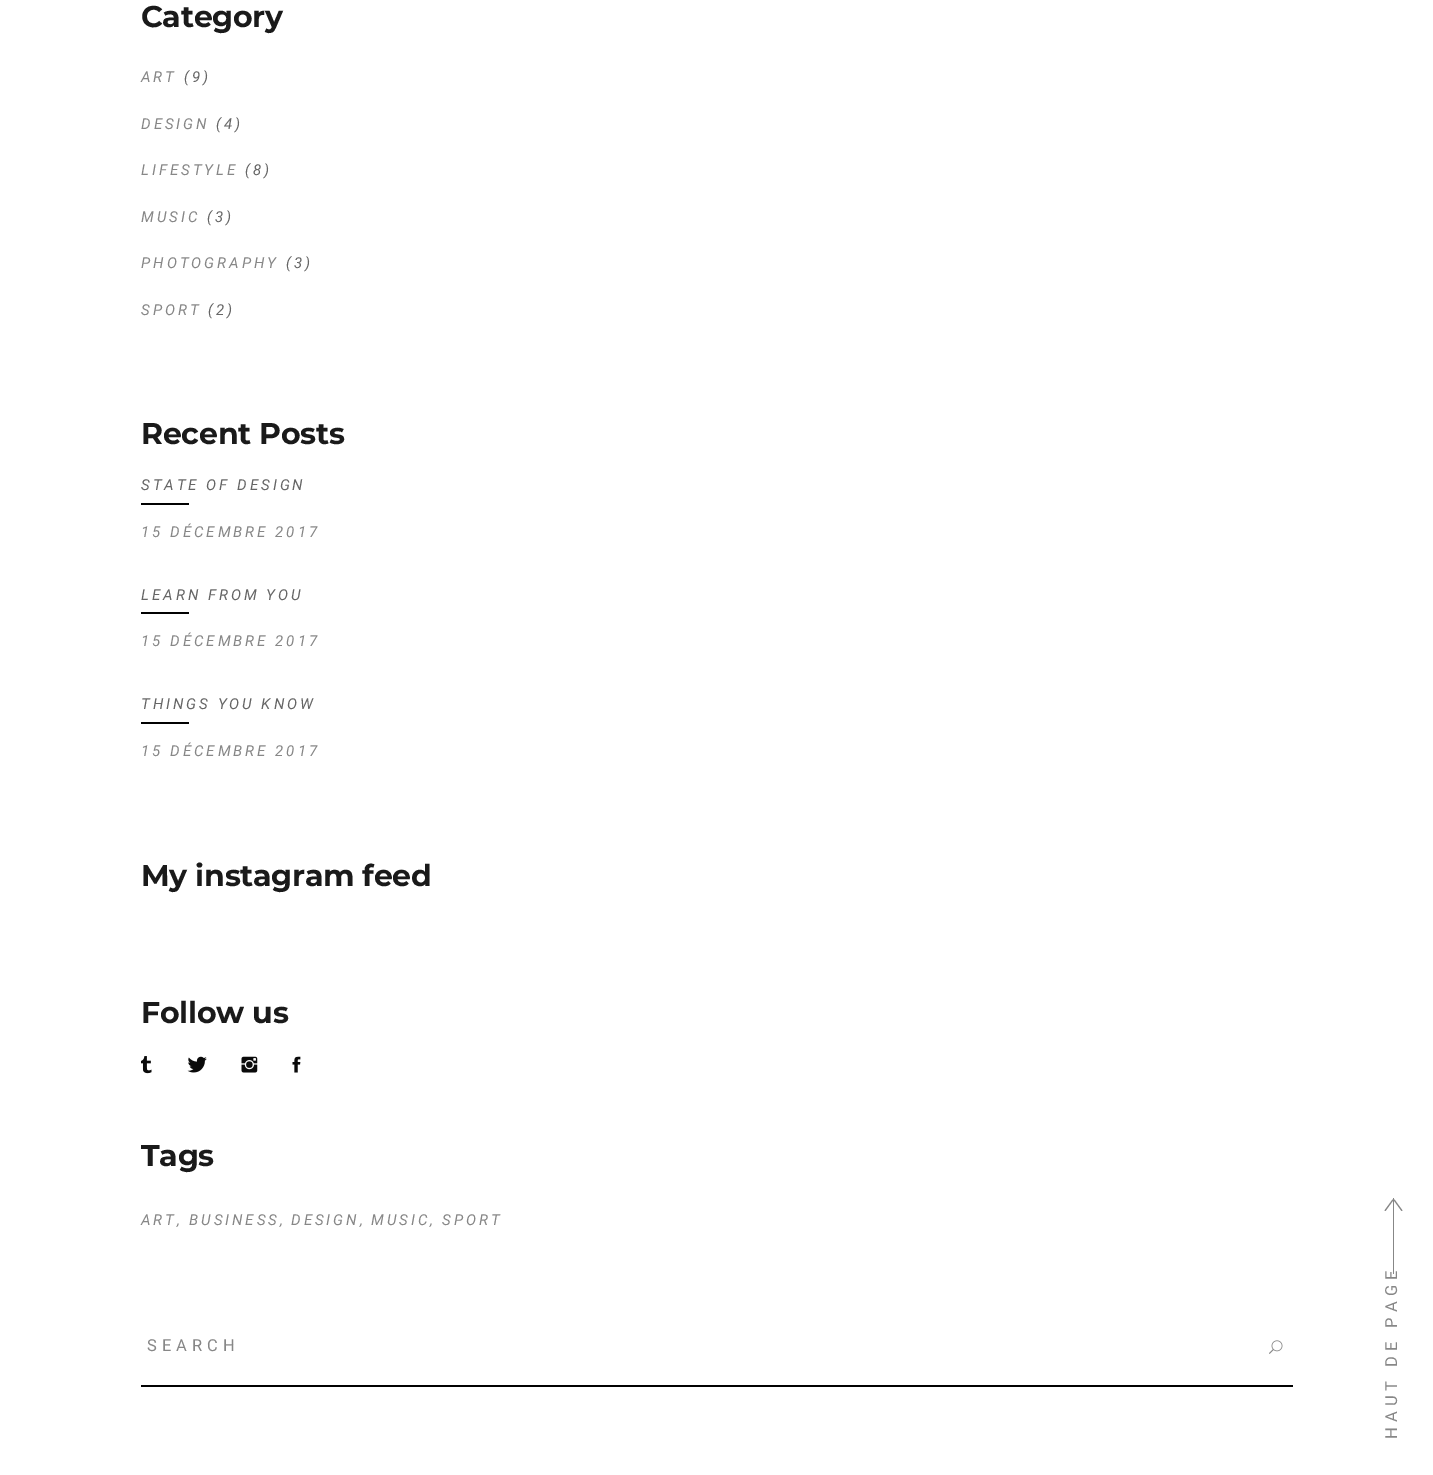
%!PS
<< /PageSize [1433 1475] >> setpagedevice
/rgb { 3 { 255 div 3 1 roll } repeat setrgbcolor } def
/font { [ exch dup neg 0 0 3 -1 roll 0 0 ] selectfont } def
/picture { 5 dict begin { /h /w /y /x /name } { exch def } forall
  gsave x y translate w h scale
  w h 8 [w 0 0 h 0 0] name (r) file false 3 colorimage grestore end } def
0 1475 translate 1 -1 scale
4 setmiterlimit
255 255 255 rgb
0 0 1433 1475 rectfill
[
  [141 503 48 2 1 1 1]
  [141 612 48 2 1 1 1]
  [141 722 48 2 1 1 1]
] { aload pop rgb rectfill } forall
(img/1.rgb) 141 1056 11 18 picture
(img/2.rgb) 187 1056 20 17 picture
(img/3.rgb) 241 1056 17 17 picture
(img/4.rgb) 292 1056 9 17 picture
141 1385 1152 2 rectfill
(img/5.rgb) 1269 1340 14 14 picture
135 135 135 rgb
1393 1198 1 76 rectfill
1401.5 1211 moveto 1393.5 1200 lineto 1394.5 1199.5 lineto 1402.5 1210.5 lineto closepath fill
1384.5 1210.5 moveto 1392.5 1199.5 lineto 1393.5 1200 lineto 1385.5 1211 lineto closepath fill
/Montserrat-Bold 30 font
26 26 26 rgb
141 27 moveto -0.25 0 (Category) ashow
/Roboto-Italic 15 font
135 135 135 rgb
141 82 moveto 3 0 (ART) ashow
102 102 102 rgb
184 82 moveto 3 0 (\(9\)) ashow
135 135 135 rgb
141 129 moveto 3 0 (DESIGN) ashow
102 102 102 rgb
216 129 moveto 3 0 (\(4\)) ashow
135 135 135 rgb
141 175 moveto 3 0 (LIFESTYLE) ashow
102 102 102 rgb
245 175 moveto 3 0 (\(8\)) ashow
135 135 135 rgb
141 222 moveto 3 0 (MUSIC) ashow
102 102 102 rgb
207 222 moveto 3 0 (\(3\)) ashow
135 135 135 rgb
141 268 moveto 3 0 (PHOTOGRAPHY) ashow
102 102 102 rgb
286 268 moveto 3 0 (\(3\)) ashow
135 135 135 rgb
141 315 moveto 3 0 (SPORT) ashow
102 102 102 rgb
208 315 moveto 3 0 (\(2\)) ashow
/Montserrat-Bold 30 font
26 26 26 rgb
141 444 moveto -0.25 0 (Recent Posts) ashow
/Roboto-Italic 15 font
102 102 102 rgb
141 490 moveto 3 0 (STATE OF DESIGN) ashow
135 135 135 rgb
141 537 moveto 3 0 (15 DÉCEMBRE 2017) ashow
102 102 102 rgb
141 600 moveto 3 0 (LEARN FROM YOU) ashow
135 135 135 rgb
141 646 moveto 3 0 (15 DÉCEMBRE 2017) ashow
102 102 102 rgb
141 709 moveto 3 0 (THINGS YOU KNOW) ashow
135 135 135 rgb
141 756 moveto 3 0 (15 DÉCEMBRE 2017) ashow
/Montserrat-Bold 30 font
26 26 26 rgb
141 886 moveto -0.25 0 (My instagram feed) ashow
141 1023 moveto -0.25 0 (Follow us) ashow
141 1166 moveto -0.25 0 (Tags) ashow
/Roboto-Italic 15 font
135 135 135 rgb
141 1225 moveto 3 0 (ART,) ashow
189 1225 moveto 3 0 (BUSINESS,) ashow
291 1225 moveto 3 0 (DESIGN,) ashow
371 1225 moveto 3 0 (MUSIC,) ashow
442 1225 moveto 3 0 (SPORT) ashow
/Roboto-Regular 16.5 font
147 1351 moveto 5 0 (SEARCH) ashow
gsave 1397 1439 translate -90 rotate 0 0 moveto 5 0 (HAUT DE PAGE) ashow grestore
showpage
